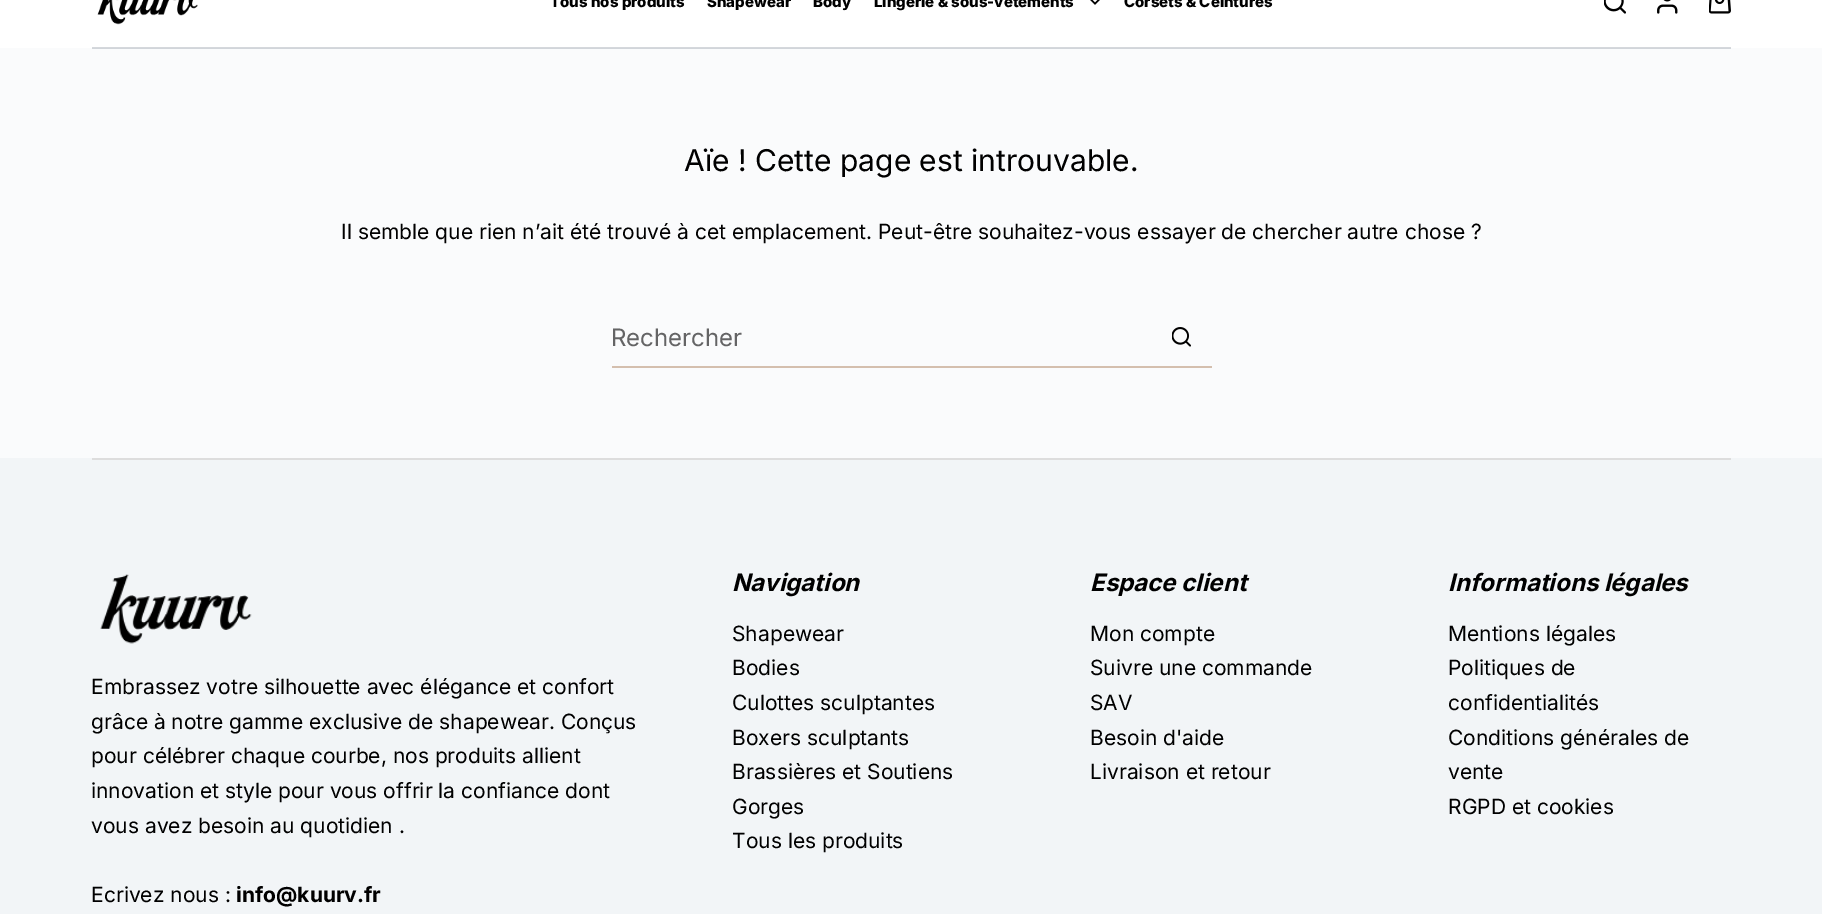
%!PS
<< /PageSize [1822 914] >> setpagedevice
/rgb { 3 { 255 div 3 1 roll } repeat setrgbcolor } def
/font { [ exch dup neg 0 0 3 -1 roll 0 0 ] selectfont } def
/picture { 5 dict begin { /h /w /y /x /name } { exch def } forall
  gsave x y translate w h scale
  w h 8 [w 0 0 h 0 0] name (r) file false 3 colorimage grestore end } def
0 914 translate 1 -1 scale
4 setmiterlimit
250 251 252 rgb
0 0 1822 914 rectfill
[
  [92 48 1639 1 209 213 218]
  [0 0 1822 48 255 255 255]
  [92 47 1639 1 213 216 220]
] { aload pop rgb rectfill } forall
(img/1.rgb) 97 0 101 25 picture
(img/2.rgb) 1090 0 10 5 picture
(img/3.rgb) 1604 0 22 14 picture
(img/4.rgb) 1657 0 21 14 picture
(img/5.rgb) 1709 0 22 14 picture
212 191 174 rgb
612 366 600 2 rectfill
(img/6.rgb) 1172 327 19 20 picture
242 245 247 rgb
0 458 1822 456 rectfill
221 221 221 rgb
92 458 1639 2 rectfill
(img/7.rgb) 100 574 152 70 picture
/Inter-ExtraBold 15 font
0 0 0 rgb
[
  [(Tous nos produits) 550 7]
  [(Shapewear) 707 7]
  [(Body) 813 7]
  [(Lingerie & sous-vêtements) 874 7]
  [(Corsets & Ceintures) 1124 7]
] { aload pop moveto show } forall
/Inter-Regular 30 font
684 171 moveto (Aïe ! Cette page est introuvable.) show
/Inter-Regular 21 font
341 239 moveto (Il semble que rien n’ait été trouvé à cet emplacement. Peut-être souhaitez-vous essayer de chercher autre chose ?) show
/Inter-Regular 24 font
100 100 101 rgb
611 346 moveto (Rechercher) show
/Inter-Regular 21 font
0 0 0 rgb
[
  [(Embrassez votre silhouette avec élégance et confort) 91 694]
  [(grâce à notre gamme exclusive de shapewear. Conçus) 91 729]
  [(pour célébrer chaque courbe, nos produits allient) 91 763]
  [(innovation et style pour vous offrir la confiance dont) 91 798]
  [(vous avez besoin au quotidien .) 91 833]
  [(Ecrivez nous :) 91 902]
] { aload pop moveto show } forall
/Inter-Bold 21 font
236 902 moveto (info@kuurv.fr) show
/Inter-BoldItalic 24 font
732 591 moveto (Navigation) show
/Inter-Regular 21 font
[
  [(Shapewear) 732 641]
  [(Bodies) 732 675]
  [(Culottes sculptantes) 732 710]
  [(Boxers sculptants) 732 745]
  [(Brassières et Soutiens) 732 779]
  [(Gorges) 732 814]
  [(Tous les produits) 732 848]
] { aload pop moveto show } forall
/Inter-BoldItalic 24 font
1090 591 moveto (Espace client) show
/Inter-Regular 21 font
[
  [(Mon compte) 1090 641]
  [(Suivre une commande) 1090 675]
  [(SAV) 1090 710]
  [(Besoin d'aide) 1090 745]
  [(Livraison et retour) 1090 779]
] { aload pop moveto show } forall
/Inter-BoldItalic 24 font
1448 591 moveto (Informations légales) show
/Inter-Regular 21 font
[
  [(Mentions légales) 1448 641]
  [(Politiques de) 1448 675]
  [(confidentialités) 1448 710]
  [(Conditions générales de) 1448 745]
  [(vente) 1448 779]
  [(RGPD et cookies) 1448 814]
] { aload pop moveto show } forall
showpage
